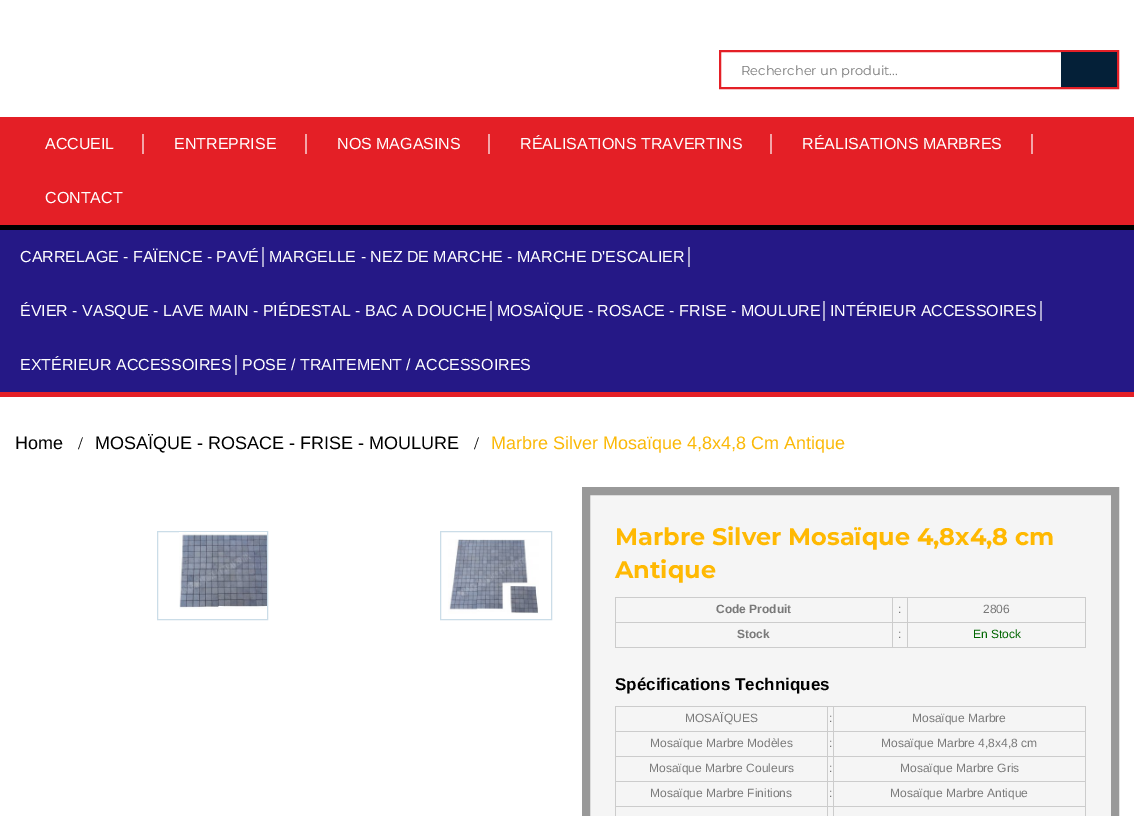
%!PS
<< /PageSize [1134 816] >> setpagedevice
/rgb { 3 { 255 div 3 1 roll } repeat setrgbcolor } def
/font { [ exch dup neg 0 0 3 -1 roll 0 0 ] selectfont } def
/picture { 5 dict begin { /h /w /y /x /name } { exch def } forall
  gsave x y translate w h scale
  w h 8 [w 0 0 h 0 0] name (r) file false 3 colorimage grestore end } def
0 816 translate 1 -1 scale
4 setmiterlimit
255 255 255 rgb
0 0 1134 816 rectfill
228 31 38 rgb
2 setlinewidth
720 51 398 37 rectstroke
[
  [1061 52 56 35 4 32 56]
  [0 117 1134 108 228 31 38]
  [0 225 1134 5 0 0 0]
  [142 134 2 20 244 165 168]
  [305 134 2 20 244 165 168]
  [488 134 2 20 244 165 168]
  [770 134 2 20 244 165 168]
  [1031 134 2 20 244 165 168]
  [0 230 1134 162 37 24 134]
  [0 392 1134 5 228 31 38]
  [262 247 2 20 168 163 207]
  [688 247 2 20 168 163 207]
  [490 301 2 20 168 163 207]
  [823 301 2 20 168 163 207]
  [1040 301 2 20 168 163 207]
  [235 355 2 20 168 163 207]
] { aload pop rgb rectfill } forall
203 221 232 rgb
1 setlinewidth
157.5 531.5 110 88 rectstroke
(img/1.rgb) 179 532 88 77 picture
440.5 531.5 111 88 rectstroke
(img/2.rgb) 448 539 91 75 picture
245 245 245 rgb
586 491 moveto 1115 491 lineto 1115 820 lineto 586 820 lineto closepath gsave fill grestore
153 153 153 rgb
8 setlinewidth
stroke
[
  [907 597 179 1 204 204 204]
  [907 622 179 1 204 204 204]
  [1085 622 1 26 204 204 204]
  [907 647 179 1 204 204 204]
  [907 622 1 26 204 204 204]
  [892 622 16 1 204 204 204]
  [907 597 1 26 204 204 204]
  [892 597 16 1 204 204 204]
  [892 647 16 1 204 204 204]
  [892 622 1 26 204 204 204]
  [615 622 278 1 204 204 204]
  [892 597 1 26 204 204 204]
  [615 597 278 1 204 204 204]
  [615 647 278 1 204 204 204]
  [615 622 1 26 204 204 204]
  [615 597 1 26 204 204 204]
  [1085 597 1 26 204 204 204]
  [833 706 253 1 204 204 204]
  [833 731 253 1 204 204 204]
  [833 756 253 1 204 204 204]
  [833 781 253 1 204 204 204]
  [833 806 253 1 204 204 204]
  [833 806 1 10 204 204 204]
  [827 806 7 1 204 204 204]
  [833 781 1 26 204 204 204]
  [827 781 7 1 204 204 204]
  [833 756 1 26 204 204 204]
  [827 756 7 1 204 204 204]
  [833 731 1 26 204 204 204]
  [827 731 7 1 204 204 204]
  [833 706 1 26 204 204 204]
  [827 706 7 1 204 204 204]
  [827 806 1 10 204 204 204]
  [615 806 213 1 204 204 204]
  [827 781 1 26 204 204 204]
  [615 781 213 1 204 204 204]
  [827 756 1 26 204 204 204]
  [615 756 213 1 204 204 204]
  [827 731 1 26 204 204 204]
  [615 731 213 1 204 204 204]
  [827 706 1 26 204 204 204]
  [615 706 213 1 204 204 204]
  [615 806 1 10 204 204 204]
  [615 781 1 26 204 204 204]
  [615 756 1 26 204 204 204]
  [615 731 1 26 204 204 204]
  [615 706 1 26 204 204 204]
  [1085 806 1 10 204 204 204]
  [1085 781 1 26 204 204 204]
  [1085 756 1 26 204 204 204]
  [1085 731 1 26 204 204 204]
  [1085 706 1 26 204 204 204]
] { aload pop rgb rectfill } forall
/Montserrat-Regular 13 font
121 121 121 rgb
741 75 moveto (Rechercher un produit...) show
/Arimo-Regular 16 font
255 255 255 rgb
[
  [(ACCUEIL) 45 149]
  [(ENTREPRISE) 174 149]
  [(NOS MAGASINS) 337 149]
  [(RÉALISATIONS TRAVERTINS) 520 149]
  [(RÉALISATIONS MARBRES) 802 149]
  [(CONTACT) 45 203]
  [(CARRELAGE - FAÏENCE - PAVÉ) 20 262]
  [(MARGELLE - NEZ DE MARCHE - MARCHE D'ESCALIER) 269 262]
  [(ÉVIER - VASQUE - LAVE MAIN - PIÉDESTAL - BAC A DOUCHE) 20 316]
  [(MOSAÏQUE - ROSACE - FRISE - MOULURE) 497 316]
  [(INTÉRIEUR ACCESSOIRES) 830 316]
  [(EXTÉRIEUR ACCESSOIRES) 20 370]
  [(POSE / TRAITEMENT / ACCESSOIRES) 242 370]
] { aload pop moveto show } forall
/Arimo-Regular 18 font
0 0 0 rgb
15 449 moveto (Home) show
/LiberationSerif-Regular 18 font
78 449 moveto (/) show
/Arimo-Regular 18 font
95 449 moveto (MOSAÏQUE - ROSACE - FRISE - MOULURE) show
/LiberationSerif-Regular 18 font
474 449 moveto (/) show
/Arimo-Regular 18 font
251 185 8 rgb
491 449 moveto (Marbre Silver Mosaïque 4,8x4,8 Cm Antique) show
/Montserrat-Bold 24 font
255 185 2 rgb
615 545 moveto (Marbre Silver Mosaïque 4,8x4,8 cm) show
615 578 moveto (Antique) show
/Arimo-Bold 12 font
121 121 121 rgb
716 613 moveto (Code Produit) show
/Arimo-Regular 12 font
898 613 moveto (:) show
983 613 moveto (2806) show
/Arimo-Bold 12 font
737 638 moveto (Stock) show
/Arimo-Regular 12 font
898 638 moveto (:) show
0 102 0 rgb
973 638 moveto (En Stock) show
/Arimo-Bold 17 font
0 0 0 rgb
615 690 moveto (Spécifications Techniques) show
/Arimo-Regular 12 font
121 121 121 rgb
[
  [(MOSAÏQUES) 685 722]
  [(:) 829 722]
  [(Mosaïque Marbre) 912 722]
  [(Mosaïque Marbre Modèles) 650 747]
  [(:) 829 747]
  [(Mosaïque Marbre 4,8x4,8 cm) 881 747]
  [(Mosaïque Marbre Couleurs) 649 772]
  [(:) 829 772]
  [(Mosaïque Marbre Gris) 900 772]
  [(Mosaïque Marbre Finitions) 650 797]
  [(:) 829 797]
  [(Mosaïque Marbre Antique) 890 797]
] { aload pop moveto show } forall
showpage
